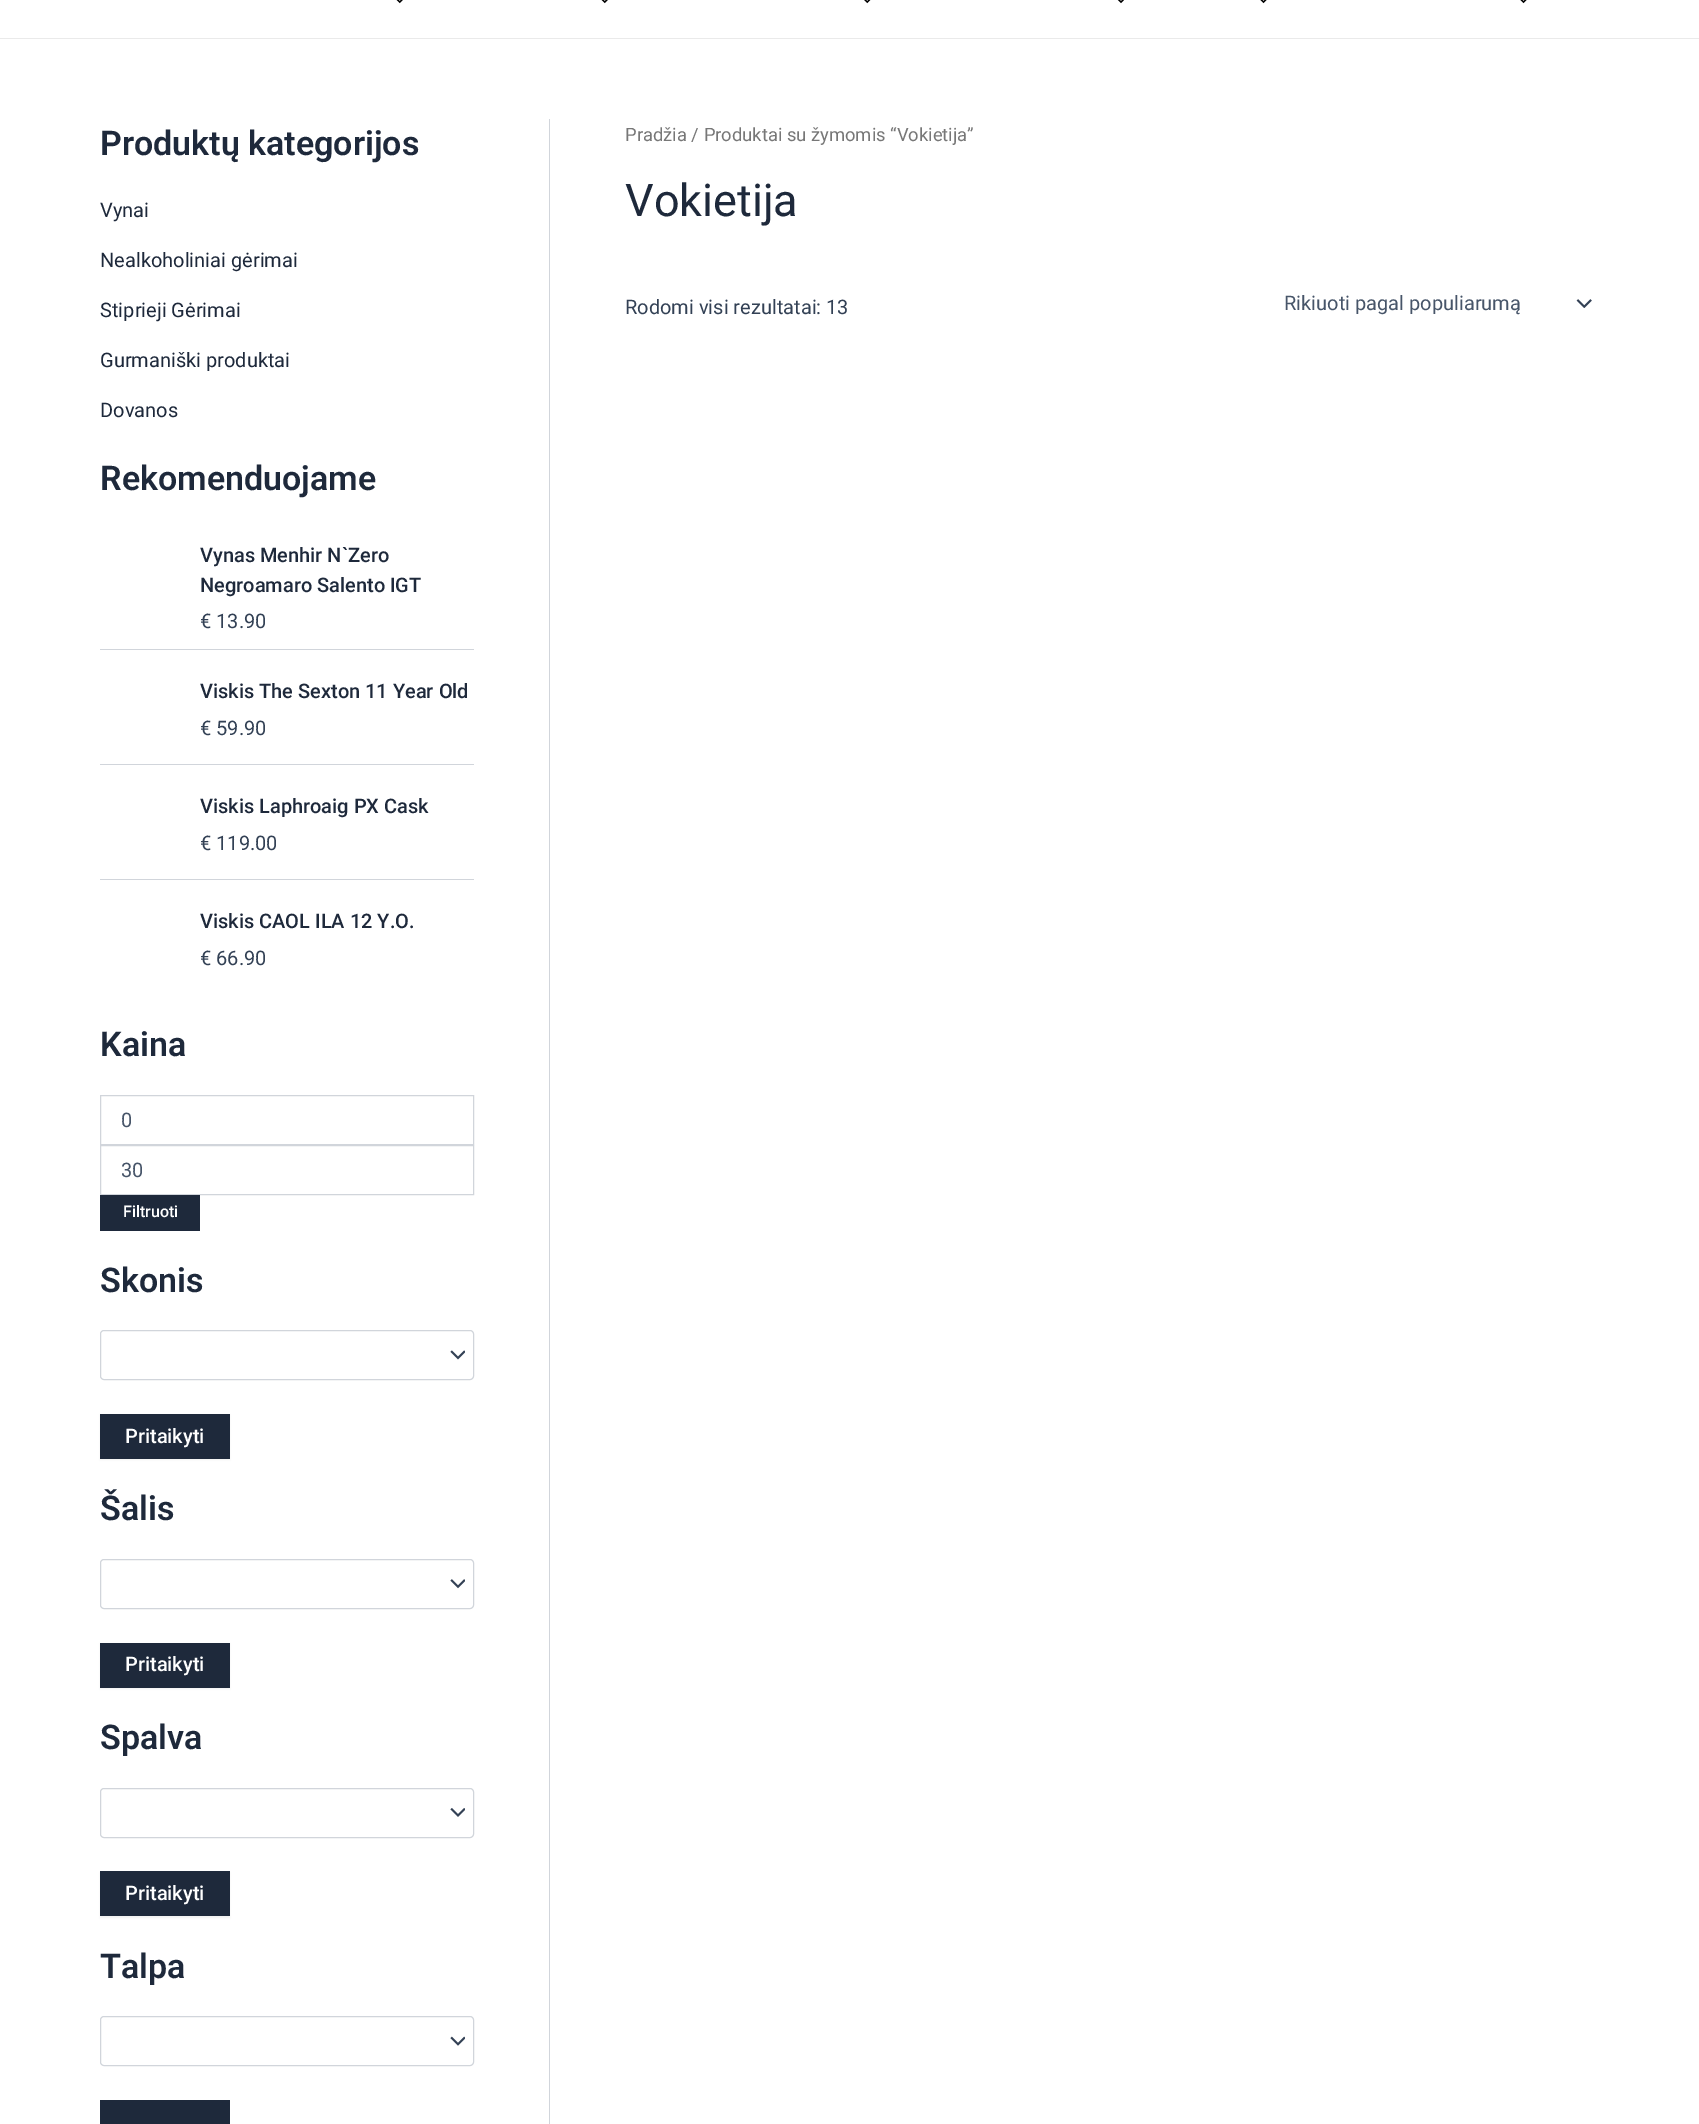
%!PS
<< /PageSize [1699 2124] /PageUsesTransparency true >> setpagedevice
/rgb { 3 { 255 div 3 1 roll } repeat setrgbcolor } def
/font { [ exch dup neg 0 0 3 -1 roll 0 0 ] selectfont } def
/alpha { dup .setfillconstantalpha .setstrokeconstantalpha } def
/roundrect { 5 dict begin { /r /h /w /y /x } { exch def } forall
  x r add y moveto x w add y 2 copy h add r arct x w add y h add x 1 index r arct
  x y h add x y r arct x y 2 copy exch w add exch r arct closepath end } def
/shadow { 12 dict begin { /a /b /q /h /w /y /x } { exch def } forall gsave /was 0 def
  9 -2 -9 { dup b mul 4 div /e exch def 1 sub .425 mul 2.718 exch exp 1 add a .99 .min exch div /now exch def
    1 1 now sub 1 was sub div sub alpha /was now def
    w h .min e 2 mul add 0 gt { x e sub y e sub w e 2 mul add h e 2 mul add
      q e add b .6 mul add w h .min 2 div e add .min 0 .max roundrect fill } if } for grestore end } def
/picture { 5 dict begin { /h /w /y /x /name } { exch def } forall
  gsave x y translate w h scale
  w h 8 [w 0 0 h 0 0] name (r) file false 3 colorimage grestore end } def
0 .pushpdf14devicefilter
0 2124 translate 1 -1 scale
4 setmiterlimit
255 255 255 rgb
0 0 1699 2124 rectfill
234 234 234 rgb
0 38 1699 1 rectfill
(img/1.rgb) 396 0 7 4 picture
(img/1.rgb) 601 0 7 4 picture
(img/2.rgb) 864 0 7 4 picture
(img/3.rgb) 1117 0 7 4 picture
(img/4.rgb) 1260 0 7 4 picture
(img/4.rgb) 1520 0 7 4 picture
[
  [549 119 1 2005 209 213 219]
  [100 649 374 1 209 213 219]
  [100 764 374 1 209 213 219]
  [100 879 374 1 209 213 219]
] { aload pop rgb rectfill } forall
100.5 1095.5 373 49 rectstroke
100.5 1145.5 373 49 rectstroke
30 41 59 rgb
100 1195 100 36 rectfill
(img/5.rgb) 450 1350 15 10 picture
209 213 219 rgb
100.5 1330.5 373 49 3.5 roundrect stroke
0 0 0 rgb
100 1415 130 45 0 1 0.05 shadow
30 41 59 rgb
100 1414 130 45 rectfill
(img/6.rgb) 450 1579 15 10 picture
209 213 219 rgb
100.5 1559.5 373 49 3.5 roundrect stroke
0 0 0 rgb
100 1644 130 45 0 1 0.05 shadow
30 41 59 rgb
100 1643 130 45 rectfill
(img/7.rgb) 450 1808 15 9 picture
209 213 219 rgb
100.5 1788.5 373 49 3.5 roundrect stroke
0 0 0 rgb
100 1873 130 45 0 1 0.05 shadow
30 41 59 rgb
100 1871 130 45 rectfill
(img/8.rgb) 450 2036 15 10 picture
209 213 219 rgb
100.5 2016.5 373 49 3.5 roundrect stroke
30 41 59 rgb
100 2100 130 24 rectfill
(img/9.rgb) 1576 299 16 9 picture
/Roboto-SemiBold 34 font
100 155 moveto (Produktų kategorijos) show
/Roboto-Regular 20 font
[
  [(Vynai) 100 217]
  [(Nealkoholiniai gėrimai) 100 267]
  [(Stiprieji Gėrimai) 100 317]
  [(Gurmaniški produktai) 100 367]
  [(Dovanos) 100 417]
] { aload pop moveto show } forall
/Roboto-SemiBold 34 font
100 490 moveto (Rekomenduojame) show
/Roboto-Medium 20 font
200 562 moveto (Vynas Menhir N`Zero) show
200 592 moveto (Negroamaro Salento IGT) show
/Roboto-Regular 20 font
51 65 85 rgb
200 628 moveto (€ 13.90) show
/Roboto-Medium 20 font
30 41 59 rgb
200 698 moveto (Viskis The Sexton 11 Year Old) show
/Roboto-Regular 20 font
51 65 85 rgb
200 735 moveto (€ 59.90) show
/Roboto-Medium 20 font
30 41 59 rgb
200 813 moveto (Viskis Laphroaig PX Cask) show
/Roboto-Regular 20 font
51 65 85 rgb
200 850 moveto (€ 119.00) show
/Roboto-Medium 20 font
30 41 59 rgb
200 928 moveto (Viskis CAOL ILA 12 Y.O.) show
/Roboto-Regular 20 font
51 65 85 rgb
200 965 moveto (€ 66.90) show
/Roboto-SemiBold 34 font
30 41 59 rgb
100 1056 moveto (Kaina) show
/Roboto-Regular 20 font
71 85 105 rgb
121 1127 moveto (0) show
121 1177 moveto (30) show
/Roboto-Medium 16 font
255 255 255 rgb
123 1217 moveto (Filtruoti) show
/Roboto-SemiBold 34 font
30 41 59 rgb
100 1292 moveto (Skonis) show
/Roboto-Medium 20 font
255 255 255 rgb
125 1443 moveto (Pritaikyti) show
/Roboto-SemiBold 34 font
30 41 59 rgb
100 1520 moveto (Šalis) show
/Roboto-Medium 20 font
255 255 255 rgb
125 1671 moveto (Pritaikyti) show
/Roboto-SemiBold 34 font
30 41 59 rgb
100 1749 moveto (Spalva) show
/Roboto-Medium 20 font
255 255 255 rgb
125 1900 moveto (Pritaikyti) show
/Roboto-SemiBold 34 font
30 41 59 rgb
100 1978 moveto (Talpa) show
/Roboto-Regular 18.4 font
119 119 119 rgb
625 141 moveto (Pradžia / Produktai su žymomis “Vokietija”) show
/Roboto-Regular 45 font
30 41 59 rgb
625 216 moveto (Vokietija) show
/Roboto-Regular 20 font
51 65 85 rgb
625 314 moveto (Rodomi visi rezultatai: 13) show
71 85 105 rgb
1284 310 moveto (Rikiuoti pagal populiarumą) show
.poppdf14devicefilter showpage
